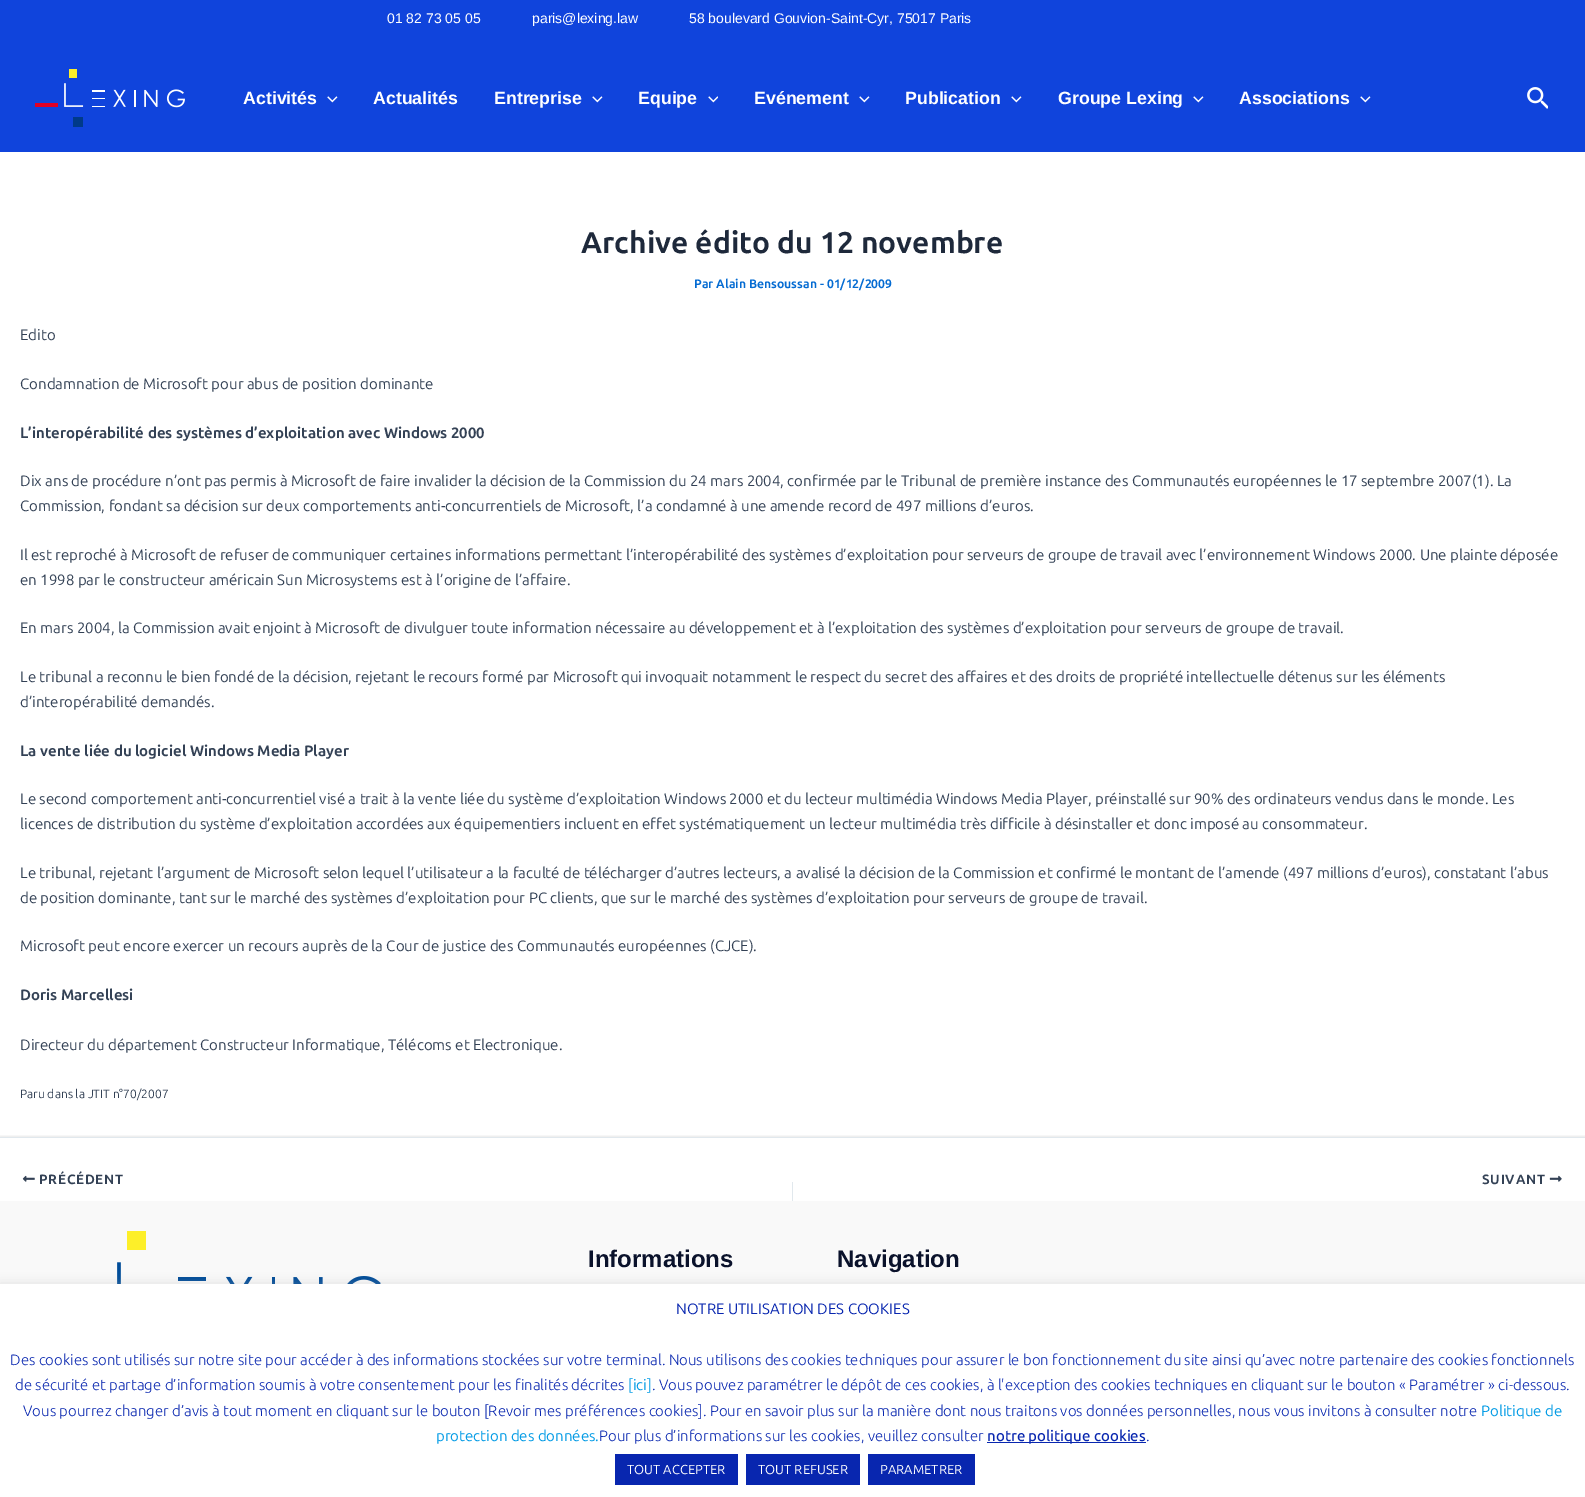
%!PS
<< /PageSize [1585 1497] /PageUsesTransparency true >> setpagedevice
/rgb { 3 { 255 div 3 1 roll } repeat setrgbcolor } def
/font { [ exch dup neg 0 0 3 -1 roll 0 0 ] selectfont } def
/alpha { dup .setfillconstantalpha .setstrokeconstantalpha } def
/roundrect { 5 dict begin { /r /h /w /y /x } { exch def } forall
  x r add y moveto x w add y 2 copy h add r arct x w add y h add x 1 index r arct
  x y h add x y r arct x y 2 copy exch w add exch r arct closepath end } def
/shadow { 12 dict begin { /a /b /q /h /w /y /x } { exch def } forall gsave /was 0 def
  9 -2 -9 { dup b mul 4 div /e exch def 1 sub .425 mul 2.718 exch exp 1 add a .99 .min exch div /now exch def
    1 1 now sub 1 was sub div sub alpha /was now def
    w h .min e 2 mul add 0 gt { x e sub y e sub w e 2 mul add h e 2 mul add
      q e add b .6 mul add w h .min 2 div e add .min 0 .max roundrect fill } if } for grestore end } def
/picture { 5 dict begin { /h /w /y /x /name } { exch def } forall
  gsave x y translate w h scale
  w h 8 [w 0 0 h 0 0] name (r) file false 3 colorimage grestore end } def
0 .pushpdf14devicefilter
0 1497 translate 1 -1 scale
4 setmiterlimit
255 255 255 rgb
0 0 1585 1497 rectfill
16 68 220 rgb
0 0 1585 152 rectfill
(img/1.rgb) 35 69 150 58 picture
(img/2.rgb) 327 96 11 7 picture
(img/2.rgb) 592 96 11 7 picture
(img/3.rgb) 708 96 10 7 picture
(img/2.rgb) 859 96 11 7 picture
(img/2.rgb) 1011 96 11 7 picture
(img/2.rgb) 1193 96 11 7 picture
(img/2.rgb) 1360 96 11 7 picture
(img/4.rgb) 1527 87 21 22 picture
gsave
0 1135 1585 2 rectclip
0 0 0 rgb
0 1138 1585 64 0 2.5 0.2 shadow
grestore
225 232 237 rgb
0 1137 1585 1 rectfill
(img/5.rgb) 22 1175 13 7 picture
792 1182 1 19 rectfill
(img/6.rgb) 1549 1175 13 7 picture
249 249 249 rgb
0 1201 1585 83 rectfill
(img/7.rgb) 117 1231 264 53 picture
172 171 171 rgb
0 1283 1585 213 0 5 0.3 shadow
[
  [0 1284 1585 213 255 255 255]
  [987 1442 159 1 8 38 175]
  [615 1454 123 31 8 38 175]
  [746 1454 114 31 8 38 175]
  [868 1454 107 31 8 38 175]
] { aload pop rgb rectfill } forall
/LiberationSans-Regular 14 font
255 255 255 rgb
[
  [(01 82 73 05 05) 387 23]
  [(paris@lexing.law) 532 23]
  [(58 boulevard Gouvion-Saint-Cyr, 75017 Paris) 689 23]
] { aload pop moveto show } forall
/LiberationSans-Bold 17.75 font
[
  [(Activités) 243 104]
  [(Actualités) 373 104]
  [(Entreprise) 494 104]
  [(Equipe) 638 104]
  [(Evénement) 754 104]
  [(Publication) 905 104]
  [(Groupe Lexing) 1058 104]
  [(Associations) 1239 104]
] { aload pop moveto show } forall
/Ubuntu-Bold 30 font
30 41 59 rgb
581 253 moveto (Archive édito du 12 novembre) show
/Ubuntu-Bold 12.25 font
4 107 210 rgb
694 288 moveto (Par Alain Bensoussan - 01/12/2009) show
/Ubuntu-Regular 15 font
51 65 85 rgb
20 340 moveto (Edito) show
20 389 moveto (Condamnation de Microsoft pour abus de position dominante) show
/Ubuntu-Bold 15 font
20 438 moveto (L’interopérabilité des systèmes d’exploitation avec Windows 2000) show
/Ubuntu-Regular 15 font
[
  [(Dix ans de procédure n’ont pas permis à Microsoft de faire invalider la décision de la Commission du 24 mars 2004, confirmée par le Tribunal de première instance des Communautés européennes le 17 septembre 2007\(1\). La) 20 486]
  [(Commission, fondant sa décision sur deux comportements anti-concurrentiels de Microsoft, l’a condamné à une amende record de 497 millions d’euros.) 20 511]
  [(Il est reproché à Microsoft de refuser de communiquer certaines informations permettant l’interopérabilité des systèmes d’exploitation pour serveurs de groupe de travail avec l’environnement Windows 2000. Une plainte déposée) 20 560]
  [(en 1998 par le constructeur américain Sun Microsystems est à l’origine de l’affaire.) 20 585]
  [(En mars 2004, la Commission avait enjoint à Microsoft de divulguer toute information nécessaire au développement et à l’exploitation des systèmes d’exploitation pour serveurs de groupe de travail.) 20 633]
  [(Le tribunal a reconnu le bien fondé de la décision, rejetant le recours formé par Microsoft qui invoquait notamment le respect du secret des affaires et des droits de propriété intellectuelle détenus sur les éléments) 20 682]
  [(d’interopérabilité demandés.) 20 707]
] { aload pop moveto show } forall
/Ubuntu-Bold 15 font
20 756 moveto (La vente liée du logiciel Windows Media Player) show
/Ubuntu-Regular 15 font
[
  [(Le second comportement anti-concurrentiel visé a trait à la vente liée du système d’exploitation Windows 2000 et du lecteur multimédia Windows Media Player, préinstallé sur 90% des ordinateurs vendus dans le monde. Les) 20 804]
  [(licences de distribution du système d’exploitation accordées aux équipementiers incluent en effet systématiquement un lecteur multimédia très difficile à désinstaller et donc imposé au consommateur.) 20 829]
  [(Le tribunal, rejetant l’argument de Microsoft selon lequel l’utilisateur a la faculté de télécharger d’autres lecteurs, a avalisé la décision de la Commission et confirmé le montant de l’amende \(497 millions d’euros\), constatant l’abus) 20 878]
  [(de position dominante, tant sur le marché des systèmes d’exploitation pour PC clients, que sur le marché des systèmes d’exploitation pour serveurs de groupe de travail.) 20 903]
  [(Microsoft peut encore exercer un recours auprès de la Cour de justice des Communautés européennes \(CJCE\).) 20 951]
] { aload pop moveto show } forall
/Ubuntu-Bold 15 font
20 1000 moveto (Doris Marcellesi) show
/Ubuntu-Regular 15 font
20 1050 moveto (Directeur du département Constructeur Informatique, Télécoms et Electronique.) show
/Ubuntu-Regular 12 font
20 1098 moveto (Paru dans la JTIT n°70/2007) show
/Ubuntu-Bold 13.5 font
39 1184 moveto 0.75 0 (PRÉCÉDENT) ashow
1482 1184 moveto 0.75 0 (SUIVANT) ashow
/LiberationSans-Bold 24 font
10 18 43 rgb
588 1267 moveto (Informations) show
837 1267 moveto (Navigation) show
/Ubuntu-Regular 15 font
8 38 175 rgb
676 1314 moveto (NOTRE UTILISATION DES COOKIES) show
/Ubuntu-Light 15 font
10 1365 moveto (Des cookies sont utilisés sur notre site pour accéder à des informations stockées sur votre terminal. Nous utilisons des cookies techniques pour assurer le bon fonctionnement du site ainsi qu’avec notre partenaire des cookies fonctionnels) show
15 1390 moveto (de sécurité et partage d’information soumis à votre consentement pour les finalités décrites) show
/Ubuntu-Regular 15 font
3 155 229 rgb
628 1390 moveto ([ici]) show
/Ubuntu-Light 15 font
8 38 175 rgb
652 1390 moveto (. Vous pouvez paramétrer le dépôt de ces cookies, à l'exception des cookies techniques en cliquant sur le bouton « Paramétrer » ci-dessous.) show
23 1416 moveto (Vous pourrez changer d’avis à tout moment en cliquant sur le bouton [Revoir mes préférences cookies]. Pour en savoir plus sur la manière dont nous traitons vos données personnelles, nous vous invitons à consulter notre) show
/Ubuntu-Regular 15 font
3 155 229 rgb
1481 1416 moveto (Politique de) show
436 1441 moveto (protection des données.) show
/Ubuntu-Light 15 font
8 38 175 rgb
599 1441 moveto (Pour plus d’informations sur les cookies, veuillez consulter) show
/Ubuntu-Medium 15 font
987 1441 moveto (notre politique cookies) show
/Ubuntu-Light 15 font
1146 1441 moveto (.) show
/Ubuntu-Regular 13 font
255 255 255 rgb
[
  [(TOUT ACCEPTER) 627 1474]
  [(TOUT REFUSER) 758 1474]
  [(PARAMETRER) 880 1474]
] { aload pop moveto show } forall
.poppdf14devicefilter showpage
